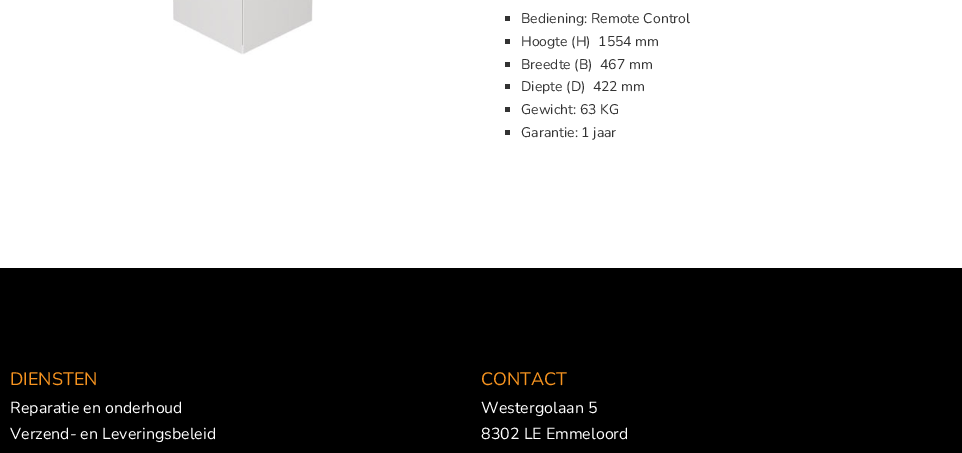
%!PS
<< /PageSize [962 453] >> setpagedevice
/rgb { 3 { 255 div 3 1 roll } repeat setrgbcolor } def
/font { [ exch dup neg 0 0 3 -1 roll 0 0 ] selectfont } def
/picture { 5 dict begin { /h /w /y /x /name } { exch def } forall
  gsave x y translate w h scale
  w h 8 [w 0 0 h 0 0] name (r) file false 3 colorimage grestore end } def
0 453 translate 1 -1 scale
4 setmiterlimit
255 255 255 rgb
0 0 962 453 rectfill
(img/1.rgb) 173 0 140 55 picture
[
  [505 16 5 5 51 51 51]
  [505 39 5 5 51 51 51]
  [505 62 5 5 51 51 51]
  [505 84 5 5 51 51 51]
  [505 107 5 5 51 51 51]
  [505 130 5 5 51 51 51]
  [0 268 962 185 0 0 0]
] { aload pop rgb rectfill } forall
/Nunito-ExtraLight 14 font
51 51 51 rgb
[
  [(Bediening: Remote Control) 521 23]
  [(Hoogte \(H\)  1554 mm) 521 46]
  [(Breedte \(B\)  467 mm) 521 69]
  [(Diepte \(D\)  422 mm) 521 91]
  [(Gewicht: 63 KG) 521 114]
  [(Garantie: 1 jaar) 521 137]
] { aload pop moveto show } forall
/Nunito-ExtraLight 18 font
247 148 32 rgb
10 385 moveto (DIENSTEN) show
/Nunito-ExtraLight 16 font
255 255 255 rgb
10 413 moveto (Reparatie en onderhoud) show
10 439 moveto (Verzend- en Leveringsbeleid) show
/Nunito-ExtraLight 18 font
247 148 32 rgb
481 385 moveto (CONTACT) show
/Nunito-ExtraLight 16 font
255 255 255 rgb
481 413 moveto (Westergolaan 5) show
481 439 moveto (8302 LE Emmeloord) show
showpage
